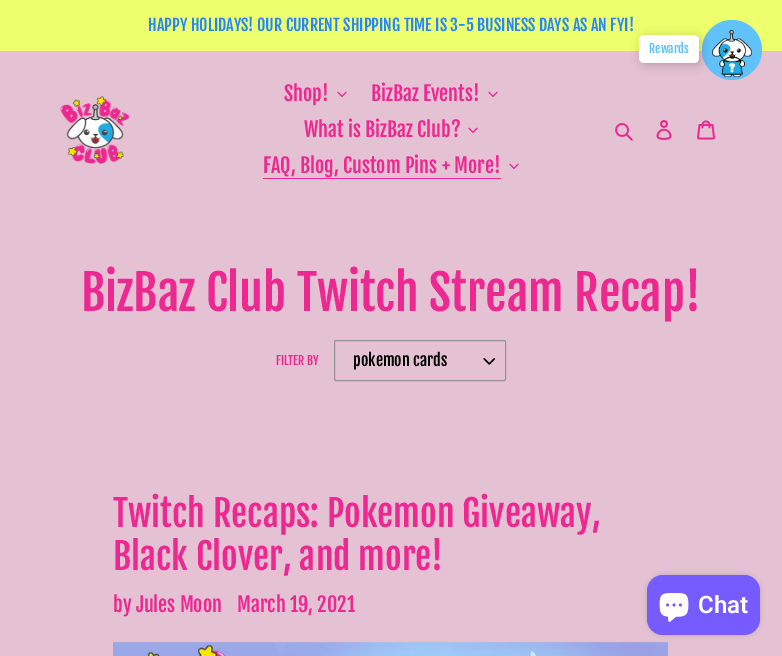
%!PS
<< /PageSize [782 656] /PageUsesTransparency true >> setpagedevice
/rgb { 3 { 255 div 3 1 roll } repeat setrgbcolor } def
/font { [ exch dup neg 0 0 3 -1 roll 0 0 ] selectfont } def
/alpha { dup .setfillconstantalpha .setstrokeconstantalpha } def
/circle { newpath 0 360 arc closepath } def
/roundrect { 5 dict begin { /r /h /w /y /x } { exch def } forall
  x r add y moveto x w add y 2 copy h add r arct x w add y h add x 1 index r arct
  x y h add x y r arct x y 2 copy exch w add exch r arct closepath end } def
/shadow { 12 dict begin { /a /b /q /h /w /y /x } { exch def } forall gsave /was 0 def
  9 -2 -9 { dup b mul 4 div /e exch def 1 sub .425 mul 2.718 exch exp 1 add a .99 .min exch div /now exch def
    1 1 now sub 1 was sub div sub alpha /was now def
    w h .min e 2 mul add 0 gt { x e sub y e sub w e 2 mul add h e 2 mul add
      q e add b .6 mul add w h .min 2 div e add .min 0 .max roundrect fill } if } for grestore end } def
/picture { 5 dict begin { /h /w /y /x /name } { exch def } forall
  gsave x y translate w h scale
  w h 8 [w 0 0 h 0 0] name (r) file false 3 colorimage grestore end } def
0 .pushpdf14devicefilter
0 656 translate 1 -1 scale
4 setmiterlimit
228 194 211 rgb
0 0 782 656 rectfill
237 255 108 rgb
0 0 782 51 rectfill
(img/1.rgb) 59 96 71 69 picture
(img/2.rgb) 337 91 10 6 picture
(img/2.rgb) 488 91 10 6 picture
(img/2.rgb) 468 127 10 6 picture
237 40 145 rgb
263 178 238 1 rectfill
(img/2.rgb) 509 163 10 6 picture
(img/3.rgb) 615 123 18 18 picture
(img/4.rgb) 656 120 16 20 picture
(img/5.rgb) 697 120 18 20 picture
97 194 250 rgb
732 50 30 circle fill
(img/6.rgb) 712 30 40 48 picture
0 0 0 rgb
641 37 60 28 5 5 0.2 shadow
255 255 255 rgb
639 35 60 28 5 roundrect fill
(img/7.rgb) 483 358 12 7 picture
148 148 148 rgb
334.5 340.5 171 40 1.5 roundrect stroke
(img/8.rgb) 113 641 555 15 picture
0 0 0 rgb
647 575 113 60 16 2.5 0.15 shadow
118 91 255 rgb
647 575 113 60 16 roundrect fill
(img/9.rgb) 659 593 30 29 picture
/FjallaOne-Regular 16 font
35 135 255 rgb
148 31 moveto (HAPPY HOLIDAYS! OUR CURRENT SHIPPING TIME IS 3-5 BUSINESS DAYS AS AN FYI!) show
/FjallaOne-Regular 20 font
237 40 145 rgb
[
  [(Shop!) 284 101]
  [(BizBaz Events!) 371 101]
  [(What is BizBaz Club?) 304 137]
  [(FAQ, Blog, Custom Pins + More!) 263 173]
] { aload pop moveto show } forall
/FjallaOne-Regular 12 font
97 194 250 rgb
649 53 moveto (Rewards) show
/FjallaOne-Regular 48 font
237 40 145 rgb
81 311 moveto (BizBaz Club Twitch Stream Recap!) show
/FjallaOne-Regular 12 font
276 365 moveto (FILTER BY) show
/FjallaOne-Regular 16 font
0 0 0 rgb
353 366 moveto (pokemon cards) show
/FjallaOne-Regular 36 font
237 40 145 rgb
113 527 moveto (Twitch Recaps: Pokemon Giveaway,) show
113 570 moveto (Black Clover, and more!) show
/FjallaOne-Regular 20 font
113 612 moveto (by Jules Moon) show
237 612 moveto (March 19, 2021) show
/Roboto-SemiBold 24 font
255 255 255 rgb
698 613 moveto (Chat) show
.poppdf14devicefilter showpage
